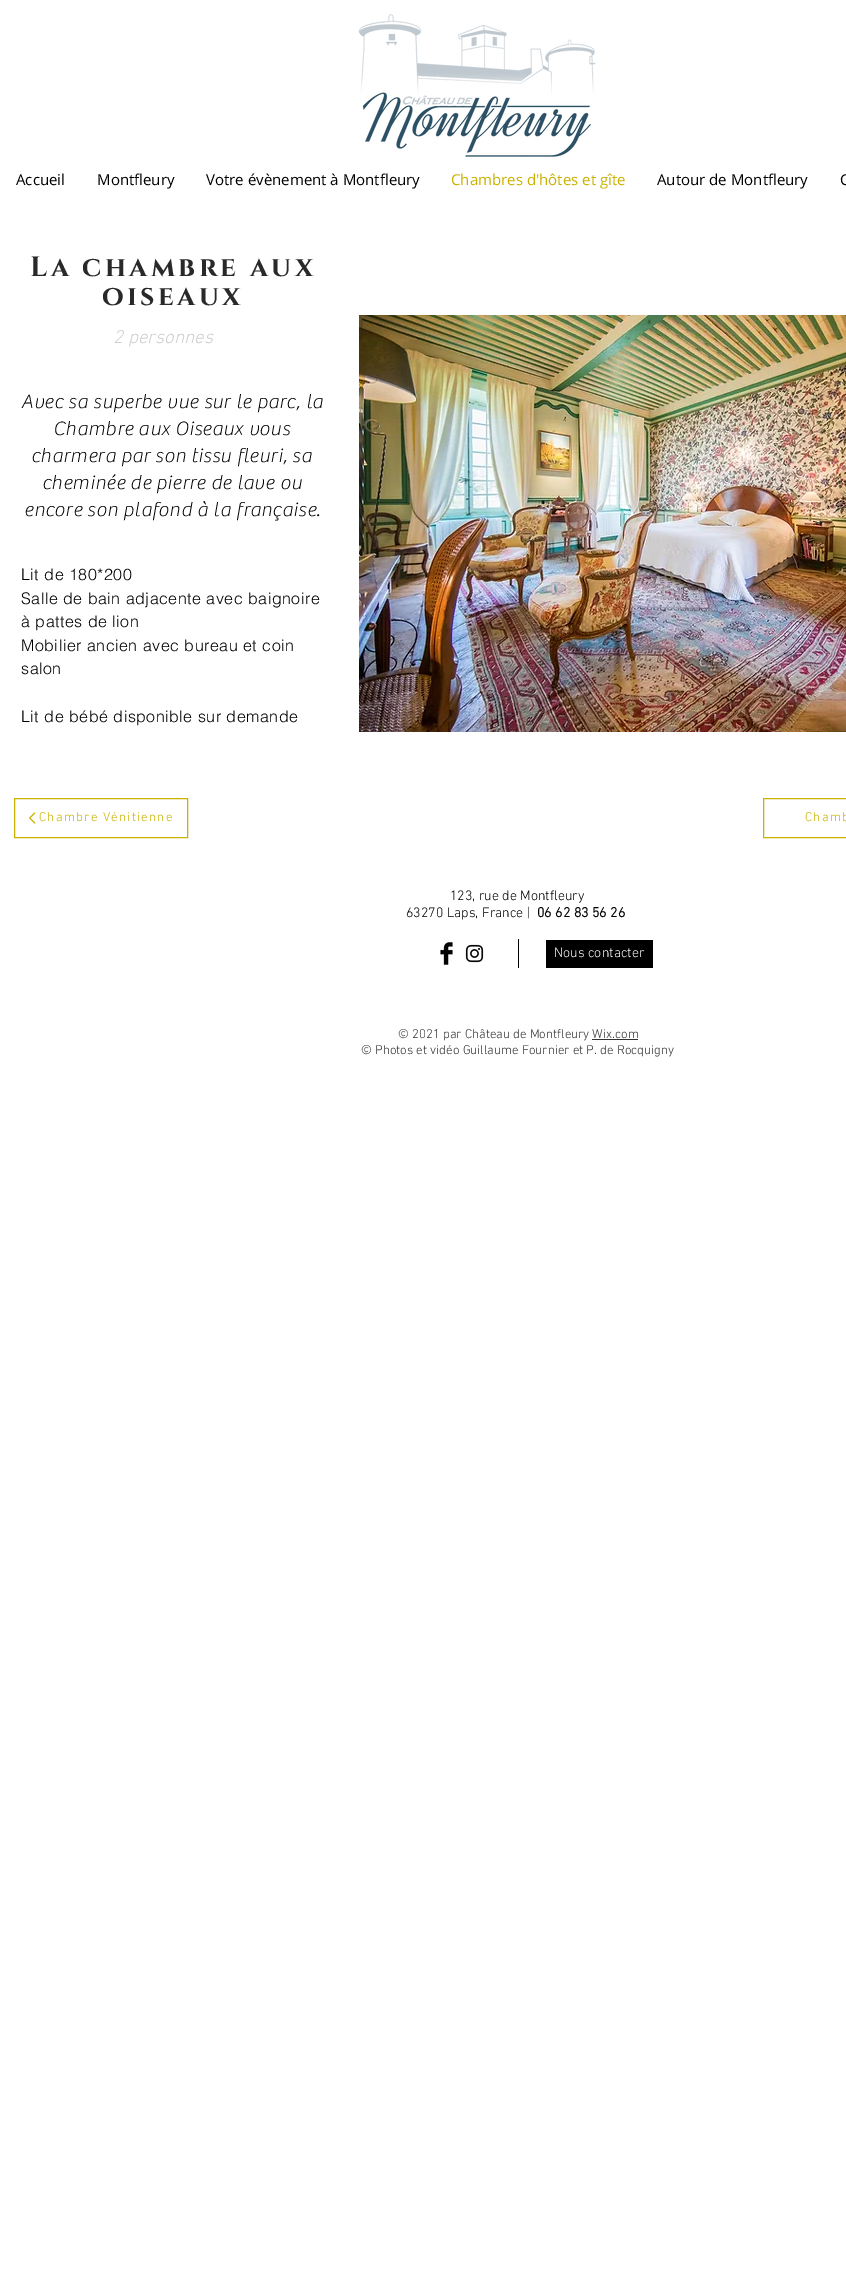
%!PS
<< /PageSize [846 2294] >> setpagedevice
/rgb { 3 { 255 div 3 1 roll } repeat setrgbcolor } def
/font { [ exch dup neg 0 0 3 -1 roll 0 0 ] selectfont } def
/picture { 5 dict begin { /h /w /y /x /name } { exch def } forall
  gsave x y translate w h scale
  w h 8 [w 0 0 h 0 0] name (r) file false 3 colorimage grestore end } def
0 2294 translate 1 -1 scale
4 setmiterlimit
255 255 255 rgb
0 0 846 2294 rectfill
(img/1.rgb) 358 14 238 143 picture
(img/2.rgb) 359 315 487 417 picture
201 178 0 rgb
14.5 798.5 173 39 rectstroke
(img/3.rgb) 29 812 7 12 picture
763.5 798.5 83 39 rectstroke
(img/4.rgb) 440 942 13 23 picture
(img/5.rgb) 465 944 19 19 picture
[
  [518 939 1 29 0 0 0]
  [546 940 107 28 0 0 0]
  [592 1039 46 1 51 51 51]
] { aload pop rgb rectfill } forall
/OpenSans-Regular 15 font
0 0 0 rgb
[
  [(Accueil) 16 185]
  [(Montfleury) 97 185]
  [(Votre évènement à Montfleury) 206 185]
] { aload pop moveto show } forall
201 178 0 rgb
451 185 moveto (Chambres d'hôtes et gîte) show
0 0 0 rgb
657 185 moveto (Autour de Montfleury) show
840 185 moveto (C) show
/Cinzel-Bold 28 font
41 41 41 rgb
30 276 moveto 3.4 0 (La chambre aux) ashow
102 305 moveto 3.4 0 (oiseaux) ashow
/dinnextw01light-LightItalic 19 font
207 207 207 rgb
113 343 moveto (2 personnes) show
/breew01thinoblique-Thin 20 font
0 0 0 rgb
21 408 moveto 0.6 0 (Avec sa superbe vue sur le parc, la) ashow
53 435 moveto 0.6 0 (Chambre aux Oiseaux vous) ashow
31 462 moveto 0.6 0 (charmera par son tissu fleuri, sa) ashow
42 489 moveto 0.6 0 (cheminée de pierre de lave ou) ashow
24 516 moveto 0.6 0 (encore son plafond à la française.) ashow
/helvetica-Light 16 font
21 580 moveto 0.5 0 (Lit de 180*200) ashow
21 604 moveto 0.5 0 (Salle de bain adjacente avec baignoire) ashow
21 627 moveto 0.5 0 (à pattes de lion) ashow
21 651 moveto 0.5 0 (Mobilier ancien avec bureau et coin) ashow
21 674 moveto 0.5 0 (salon) ashow
21 722 moveto 0.5 0 (Lit de bébé disponible sur demande) ashow
/dinnextw01light-Light 13 font
201 178 0 rgb
39 821 moveto 1.25 0 (Chambre Vénitienne) ashow
805 821 moveto 1.25 0 (Chamb) ashow
/dinnextw01light-Light 14 font
0 0 0 rgb
450 900 moveto (123, rue de Montfleury) show
406 917 moveto (63270 Laps, France |) show
/dinnextw01light-Bold 14 font
537 917 moveto (06 62 83 56 26) show
/dinnextw01light-Light 14 font
255 255 255 rgb
554 957 moveto (Nous contacter) show
/dinnextw01light-Light 13 font
51 51 51 rgb
398 1038 moveto (© 2021 par Château de Montfleury Wix.com) show
361 1054 moveto (© Photos et vidéo Guillaume Fournier et P. de Rocquigny) show
showpage
